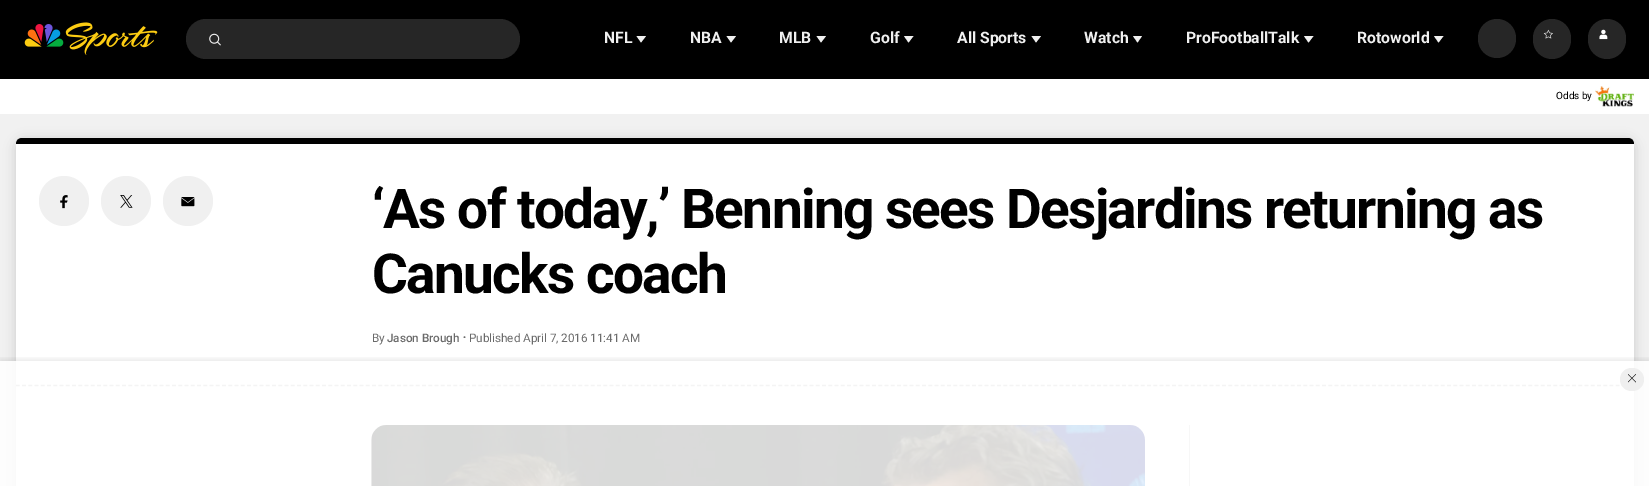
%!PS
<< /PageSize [1649 486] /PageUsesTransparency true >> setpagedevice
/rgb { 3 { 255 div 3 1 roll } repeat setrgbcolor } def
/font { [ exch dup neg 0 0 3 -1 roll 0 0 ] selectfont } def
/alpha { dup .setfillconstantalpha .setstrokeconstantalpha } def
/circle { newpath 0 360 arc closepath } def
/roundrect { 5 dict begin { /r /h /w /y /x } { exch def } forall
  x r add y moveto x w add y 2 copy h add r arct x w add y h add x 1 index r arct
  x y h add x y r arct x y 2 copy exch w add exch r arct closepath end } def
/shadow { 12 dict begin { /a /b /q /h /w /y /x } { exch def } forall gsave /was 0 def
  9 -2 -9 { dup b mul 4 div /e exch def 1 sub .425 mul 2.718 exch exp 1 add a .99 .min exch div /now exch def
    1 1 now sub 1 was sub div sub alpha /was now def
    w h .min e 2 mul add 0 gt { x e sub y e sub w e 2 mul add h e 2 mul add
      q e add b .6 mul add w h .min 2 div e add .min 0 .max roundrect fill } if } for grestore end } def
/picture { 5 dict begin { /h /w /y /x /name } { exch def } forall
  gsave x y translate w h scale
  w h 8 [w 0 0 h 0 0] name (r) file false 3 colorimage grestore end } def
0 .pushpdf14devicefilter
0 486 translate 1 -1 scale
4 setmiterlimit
241 241 241 rgb
0 0 1649 486 rectfill
0 0 0 rgb
0 0 1649 79 rectfill
(img/1.rgb) 24 22 134 33 picture
38 38 38 rgb
186 19 334 40 20 roundrect fill
(img/2.rgb) 209 33 12 13 picture
240 240 240 rgb
641 42.5 moveto 636.5 36 lineto 646 36 lineto closepath fill
731 42.5 moveto 726.5 36 lineto 736 36 lineto closepath fill
821 42.5 moveto 816.5 36 lineto 826 36 lineto closepath fill
908.5 42.5 moveto 904 36 lineto 913.5 36 lineto closepath fill
1036 42.5 moveto 1031.5 36 lineto 1041 36 lineto closepath fill
1137.5 42.5 moveto 1133 36 lineto 1142 36 lineto closepath fill
1308.5 42.5 moveto 1304 36 lineto 1313.5 36 lineto closepath fill
1438.5 42.5 moveto 1434 36 lineto 1443.5 36 lineto closepath fill
38 38 38 rgb
1478 19 38 39 19 roundrect fill
1533 19 38 40 19 roundrect fill
(img/3.rgb) 1543 29 10 10 picture
1588 19 38 40 19 roundrect fill
(img/4.rgb) 1599 29 9 11 picture
255 255 255 rgb
0 79 1649 35 rectfill
(img/5.rgb) 1595 86 39 21 picture
0 0 0 rgb
16 140 1618 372 8 6 0.15 shadow
255 255 255 rgb
16 138 1618 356 8 roundrect fill
0 0 0 rgb
22 138 moveto 1628 138 lineto 1631.5 138 1634 140.5 1634 144 curveto 16 144 lineto 16 140.5 18.5 138 22 138 curveto closepath fill
179 179 179 rgb
1.2 setlinewidth
[3.75 2.5] 0 setdash
16 385.5 moveto 1634 385.5 lineto stroke
240 240 240 rgb
64 201 25 circle fill
(img/6.rgb) 60 195 8 14 picture
126 201 25 circle fill
(img/7.rgb) 120 195 13 13 picture
188 201 25 circle fill
(img/8.rgb) 181 197 14 10 picture
106 106 106 rgb
464.5 337.2 0.8 circle fill
(img/9.rgb) 371 425 774 61 picture
204 204 204 rgb
1189 425 1 61 rectfill
gsave
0 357 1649 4 rectclip
0 0 0 rgb
0 359 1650 125 0 2.5 0.08 shadow
grestore
0.85 alpha
255 255 255 rgb
0 361 1649 125 rectfill
1 alpha
239 239 239 rgb
1620 368 24 23 11.5 roundrect fill
(img/10.rgb) 1628 374 8 9 picture
/Roboto-Bold 15.75 font
240 240 240 rgb
[
  [(NFL) 604 43]
  [(NBA) 690 43]
  [(MLB) 779 43]
  [(Golf) 870 43]
  [(All Sports) 957 43]
  [(Watch) 1084 43]
  [(ProFootballTalk) 1186 43]
  [(Rotoworld) 1357 43]
] { aload pop moveto show } forall
/Roboto-Regular 10 font
0 0 0 rgb
1556 99 moveto (Odds by) show
/Roboto-Bold 55 font
372 228 moveto -1.65 0 (‘As of today,’ Benning sees Desjardins returning as) ashow
372 293 moveto -1.65 0 (Canucks coach) ashow
/Roboto-Regular 11.75 font
106 106 106 rgb
372 342 moveto -0.05 0 (By) ashow
/Roboto-Medium 11.75 font
387 342 moveto -0.05 0 (Jason Brough) ashow
/Roboto-Regular 11.75 font
469 342 moveto -0.05 0 (Published April 7, 2016 11:41 AM) ashow
.poppdf14devicefilter showpage
